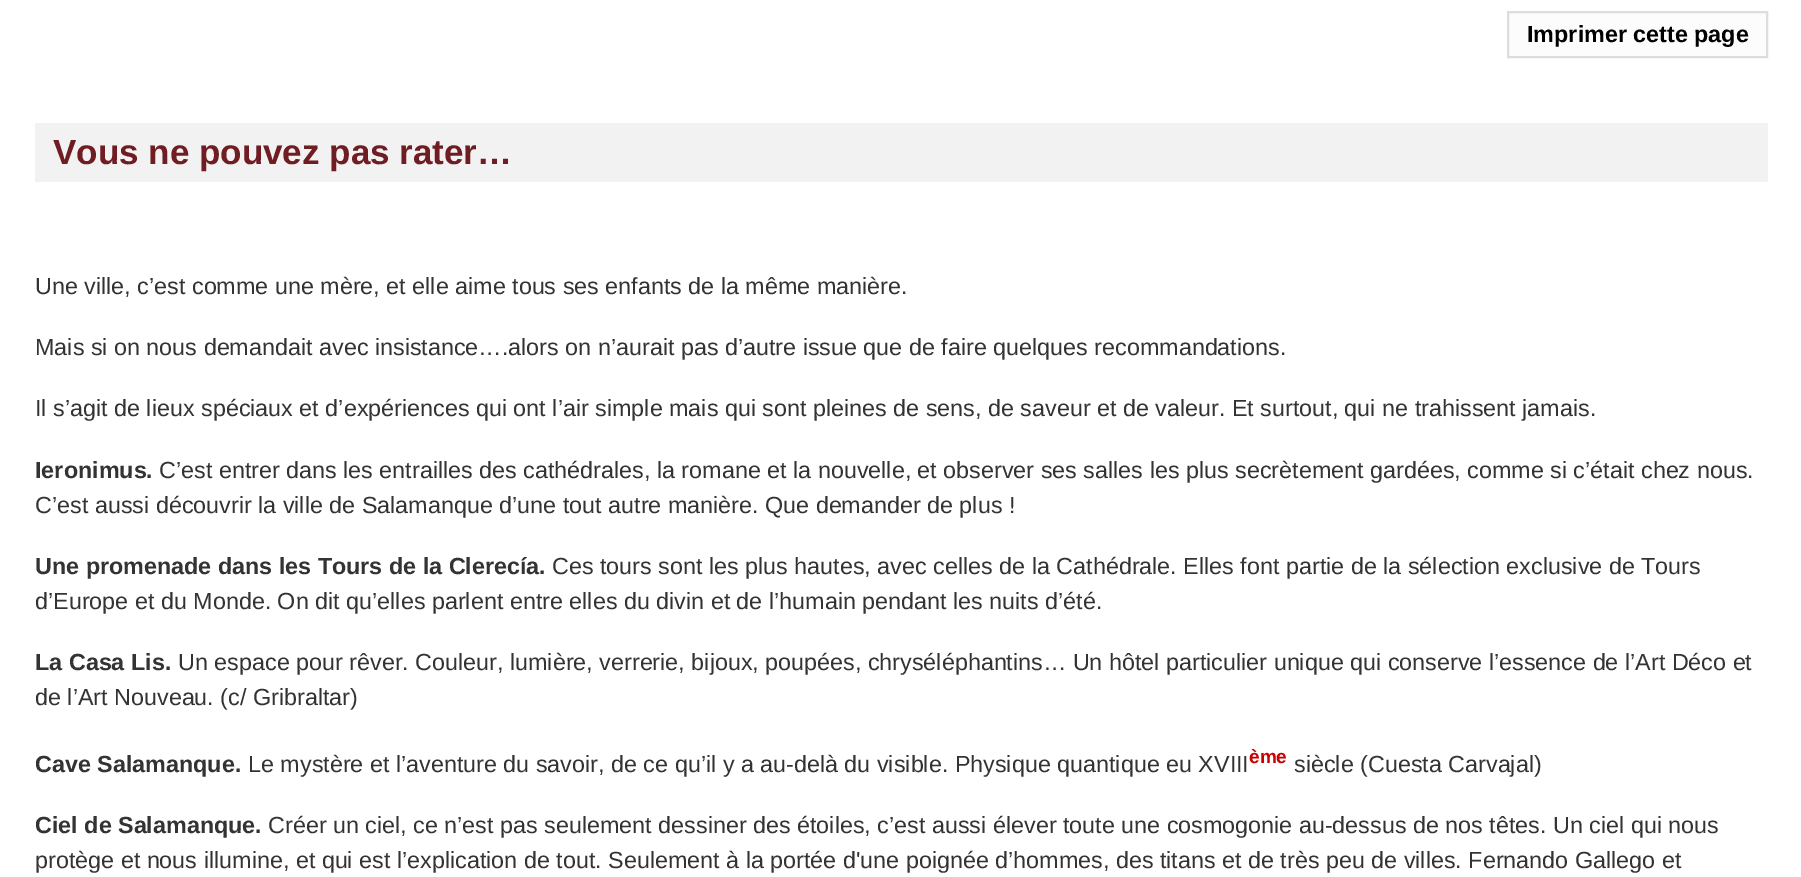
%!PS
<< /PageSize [1801 877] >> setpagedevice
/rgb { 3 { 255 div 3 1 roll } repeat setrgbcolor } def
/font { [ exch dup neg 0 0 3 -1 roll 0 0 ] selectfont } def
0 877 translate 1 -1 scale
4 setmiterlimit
255 255 255 rgb
0 0 1801 877 rectfill
252 252 252 rgb
1508 12 moveto 1767 12 lineto 1767 57 lineto 1508 57 lineto closepath gsave fill grestore
221 221 221 rgb
2 setlinewidth
stroke
242 242 242 rgb
35 123 1733 59 rectfill
/LiberationSans-Bold 23.33 font
0 0 0 rgb
1527 42 moveto (Imprimer cette page) show
/LiberationSans-Bold 35 font
111 29 35 rgb
53 164 moveto (Vous ne pouvez pas rater…) show
/LiberationSans-Regular 23.33 font
51 51 51 rgb
[
  [(Une ville, c’est comme une mère, et elle aime tous ses enfants de la même manière.) 35 294]
  [(Mais si on nous demandait avec insistance….alors on n’aurait pas d’autre issue que de faire quelques recommandations.) 35 355]
  [(Il s’agit de lieux spéciaux et d’expériences qui ont l’air simple mais qui sont pleines de sens, de saveur et de valeur. Et surtout, qui ne trahissent jamais.) 35 416]
] { aload pop moveto show } forall
/LiberationSans-Bold 23.33 font
35 478 moveto (Ieronimus.) show
/LiberationSans-Regular 23.33 font
159 478 moveto (C’est entrer dans les entrailles des cathédrales, la romane et la nouvelle, et observer ses salles les plus secrètement gardées, comme si c’était chez nous.) show
35 513 moveto (C’est aussi découvrir la ville de Salamanque d’une tout autre manière. Que demander de plus !) show
/LiberationSans-Bold 23.33 font
35 574 moveto (Une promenade dans les Tours de la Clerecía.) show
/LiberationSans-Regular 23.33 font
552 574 moveto (Ces tours sont les plus hautes, avec celles de la Cathédrale. Elles font partie de la sélection exclusive de Tours) show
35 609 moveto (d’Europe et du Monde. On dit qu’elles parlent entre elles du divin et de l’humain pendant les nuits d’été.) show
/LiberationSans-Bold 23.33 font
35 670 moveto (La Casa Lis.) show
/LiberationSans-Regular 23.33 font
178 670 moveto (Un espace pour rêver. Couleur, lumière, verrerie, bijoux, poupées, chryséléphantins… Un hôtel particulier unique qui conserve l’essence de l’Art Déco et) show
35 705 moveto (de l’Art Nouveau. \(c/ Gribraltar\)) show
/LiberationSans-Bold 23.33 font
35 772 moveto (Cave Salamanque.) show
/LiberationSans-Regular 23.33 font
248 772 moveto (Le mystère et l’aventure du savoir, de ce qu’il y a au-delà du visible. Physique quantique eu XVIII) show
/LiberationSans-Bold 19 font
204 0 0 rgb
1249 763 moveto (ème) show
/LiberationSans-Regular 23.33 font
51 51 51 rgb
1294 772 moveto (siècle \(Cuesta Carvajal\)) show
/LiberationSans-Bold 23.33 font
35 833 moveto (Ciel de Salamanque.) show
/LiberationSans-Regular 23.33 font
268 833 moveto (Créer un ciel, ce n’est pas seulement dessiner des étoiles, c’est aussi élever toute une cosmogonie au-dessus de nos têtes. Un ciel qui nous) show
35 868 moveto (protège et nous illumine, et qui est l’explication de tout. Seulement à la portée d'une poignée d’hommes, des titans et de très peu de villes. Fernando Gallego et) show
showpage
